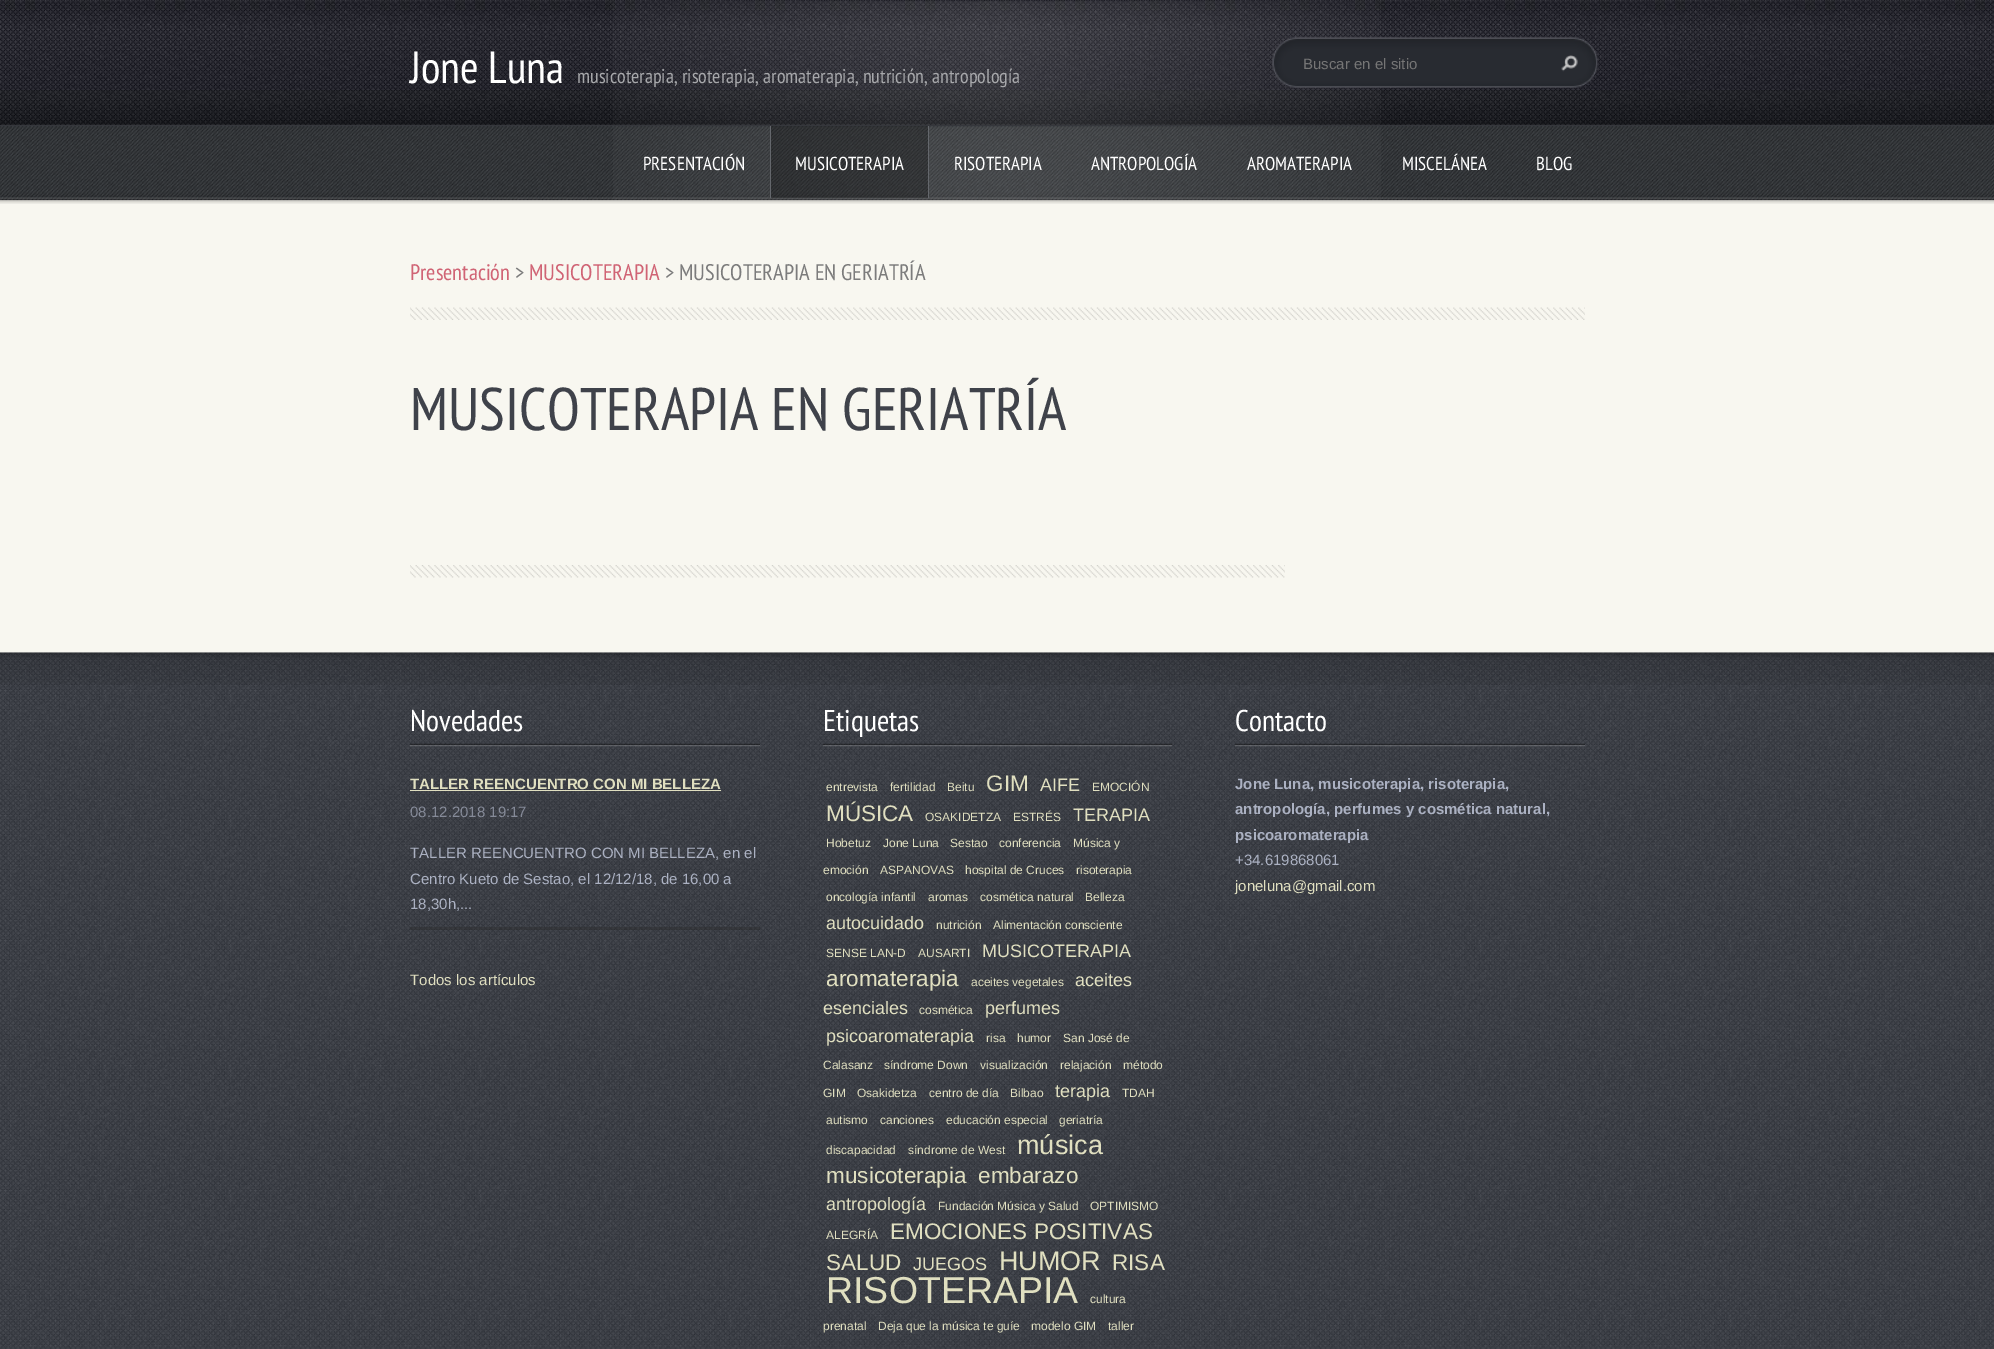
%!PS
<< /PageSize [1994 1349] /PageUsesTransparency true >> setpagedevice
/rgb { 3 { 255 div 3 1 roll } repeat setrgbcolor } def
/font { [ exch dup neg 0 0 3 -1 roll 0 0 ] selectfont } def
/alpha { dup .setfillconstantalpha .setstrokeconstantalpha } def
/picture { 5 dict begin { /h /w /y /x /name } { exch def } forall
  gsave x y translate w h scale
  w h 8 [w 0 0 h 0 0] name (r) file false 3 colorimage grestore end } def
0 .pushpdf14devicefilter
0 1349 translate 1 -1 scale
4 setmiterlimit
255 255 255 rgb
0 0 1994 1349 rectfill
(img/1.rgb) 0 125 1994 75 picture
(img/2.rgb) 0 0 1994 125 picture
(img/3.rgb) 613 1 768 124 picture
(img/4.rgb) 1272 37 326 51 picture
(img/5.rgb) 1561 55 17 17 picture
(img/6.rgb) 0 125 1994 75 picture
(img/7.rgb) 613 126 768 74 picture
0.25 alpha
[
  [771 126 157 72 0 0 0]
] { aload pop rgb rectfill } forall
1 alpha
[
  [928 126 1 72 100 103 108]
  [770 126 1 72 100 103 108]
  [0 200 1994 453 248 247 240]
] { aload pop rgb rectfill } forall
(img/8.rgb) 0 200 1994 4 picture
(img/9.rgb) 410 307 1175 13 picture
(img/10.rgb) 410 565 875 13 picture
(img/11.rgb) 0 652 1994 697 picture
(img/12.rgb) 0 652 1994 33 picture
(img/13.rgb) 410 743 350 4 picture
0.38 alpha
40 40 40 rgb
410 927 350 3 rectfill
1 alpha
224 223 192 rgb
410 790 311 1 rectfill
(img/14.rgb) 822 743 351 4 picture
(img/15.rgb) 1235 743 350 4 picture
/PTSansNarrow-Regular 45 font
255 255 255 rgb
410 83 moveto (Jone Luna) show
/PTSansNarrow-Regular 20 font
167 168 171 rgb
577 83 moveto (musicoterapia, risoterapia, aromaterapia, nutrición, antropología) show
/LiberationSans-Regular 15 font
117 117 117 rgb
1303 69 moveto (Buscar en el sitio) show
/PTSansNarrow-Regular 18.75 font
255 255 255 rgb
[
  [(PRESENTACIÓN) 643 170]
  [(MUSICOTERAPIA) 795 170]
  [(RISOTERAPIA) 954 170]
  [(ANTROPOLOGÍA) 1091 170]
  [(AROMATERAPIA) 1247 170]
  [(MISCELÁNEA) 1402 170]
  [(BLOG) 1536 170]
] { aload pop moveto show } forall
/PTSansNarrow-Regular 22.5 font
208 100 117 rgb
410 280 moveto (Presentación) show
124 124 124 rgb
515 280 moveto (>) show
208 100 117 rgb
529 280 moveto (MUSICOTERAPIA) show
124 124 124 rgb
665 280 moveto (> MUSICOTERAPIA EN GERIATRÍA) show
/PTSansNarrow-Regular 60 font
63 66 74 rgb
410 430 moveto (MUSICOTERAPIA EN GERIATRÍA) show
/PTSansNarrow-Regular 30 font
255 255 255 rgb
410 731 moveto (Novedades) show
/LiberationSans-Bold 15 font
224 223 192 rgb
410 789 moveto (TALLER REENCUENTRO CON MI BELLEZA) show
/LiberationSans-Regular 15 font
133 138 152 rgb
410 817 moveto (08.12.2018 19:17) show
171 177 194 rgb
[
  [(TALLER REENCUENTRO CON MI BELLEZA, en el) 410 858]
  [(Centro Kueto de Sestao, el 12/12/18, de 16,00 a) 410 884]
  [(18,30h,...) 410 909]
] { aload pop moveto show } forall
224 223 192 rgb
410 985 moveto (Todos los artículos) show
/PTSansNarrow-Regular 30 font
255 255 255 rgb
823 731 moveto (Etiquetas) show
/LiberationSans-Regular 12 font
224 223 192 rgb
[
  [(entrevista) 826 791]
  [(fertilidad) 890 791]
  [(Beitu) 947 791]
] { aload pop moveto show } forall
/LiberationSans-Regular 22.5 font
986 791 moveto (GIM) show
/LiberationSans-Regular 18 font
1040 791 moveto (AIFE) show
/LiberationSans-Regular 12 font
1092 791 moveto (EMOCIÓN) show
/LiberationSans-Regular 22.5 font
826 821 moveto (MÚSICA) show
/LiberationSans-Regular 12 font
925 821 moveto (OSAKIDETZA) show
1013 821 moveto (ESTRÉS) show
/LiberationSans-Regular 18 font
1073 821 moveto (TERAPIA) show
/LiberationSans-Regular 12 font
[
  [(Hobetuz) 826 847]
  [(Jone Luna) 883 847]
  [(Sestao) 950 847]
  [(conferencia) 999 847]
  [(Música y) 1073 847]
  [(emoción) 823 874]
  [(ASPANOVAS) 880 874]
  [(hospital de Cruces) 965 874]
  [(risoterapia) 1076 874]
  [(oncología infantil) 826 901]
  [(aromas) 928 901]
  [(cosmética natural) 980 901]
  [(Belleza) 1085 901]
] { aload pop moveto show } forall
/LiberationSans-Regular 18 font
826 929 moveto (autocuidado) show
/LiberationSans-Regular 12 font
[
  [(nutrición) 936 929]
  [(Alimentación consciente) 993 929]
  [(SENSE LAN-D) 826 957]
  [(AUSARTI) 918 957]
] { aload pop moveto show } forall
/LiberationSans-Regular 18 font
982 957 moveto (MUSICOTERAPIA) show
/LiberationSans-Regular 22.5 font
826 986 moveto (aromaterapia) show
/LiberationSans-Regular 12 font
971 986 moveto (aceites vegetales) show
/LiberationSans-Regular 18 font
1075 986 moveto (aceites) show
823 1014 moveto (esenciales) show
/LiberationSans-Regular 12 font
919 1014 moveto (cosmética) show
/LiberationSans-Regular 18 font
985 1014 moveto (perfumes) show
826 1042 moveto (psicoaromaterapia) show
/LiberationSans-Regular 12 font
[
  [(risa) 986 1042]
  [(humor) 1017 1042]
  [(San José de) 1063 1042]
  [(Calasanz) 823 1069]
  [(síndrome Down) 884 1069]
  [(visualización) 980 1069]
  [(relajación) 1060 1069]
  [(método) 1123 1069]
  [(GIM) 823 1097]
  [(Osakidetza) 857 1097]
  [(centro de día) 929 1097]
  [(Bilbao) 1010 1097]
] { aload pop moveto show } forall
/LiberationSans-Regular 18 font
1055 1097 moveto (terapia) show
/LiberationSans-Regular 12 font
[
  [(TDAH) 1122 1097]
  [(autismo) 826 1124]
  [(canciones) 880 1124]
  [(educación especial) 946 1124]
  [(geriatría) 1059 1124]
  [(discapacidad) 826 1154]
  [(síndrome de West) 908 1154]
] { aload pop moveto show } forall
/LiberationSans-Regular 27 font
1017 1154 moveto (música) show
/LiberationSans-Regular 22.5 font
826 1183 moveto (musicoterapia) show
978 1183 moveto (embarazo) show
/LiberationSans-Regular 18 font
826 1210 moveto (antropología) show
/LiberationSans-Regular 12 font
[
  [(Fundación Música y Salud) 938 1210]
  [(OPTIMISMO) 1090 1210]
  [(ALEGRÍA) 826 1239]
] { aload pop moveto show } forall
/LiberationSans-Regular 22.5 font
890 1239 moveto (EMOCIONES POSITIVAS) show
826 1270 moveto (SALUD) show
/LiberationSans-Regular 18 font
913 1270 moveto (JUEGOS) show
/LiberationSans-Regular 27 font
999 1270 moveto (HUMOR) show
/LiberationSans-Regular 22.5 font
1112 1270 moveto (RISA) show
/LiberationSans-Regular 37.5 font
826 1303 moveto (RISOTERAPIA) show
/LiberationSans-Regular 12 font
[
  [(cultura) 1090 1303]
  [(prenatal) 823 1330]
  [(Deja que la música te guíe) 878 1330]
  [(modelo GIM) 1031 1330]
  [(taller) 1108 1330]
] { aload pop moveto show } forall
/PTSansNarrow-Regular 30 font
255 255 255 rgb
1235 731 moveto (Contacto) show
/LiberationSans-Bold 15 font
171 177 194 rgb
[
  [(Jone Luna, musicoterapia, risoterapia,) 1235 789]
  [(antropología, perfumes y cosmética natural,) 1235 814]
  [(psicoaromaterapia) 1235 840]
] { aload pop moveto show } forall
/LiberationSans-Regular 15 font
1235 865 moveto (+34.619868061) show
224 223 192 rgb
1235 891 moveto (joneluna@gmail.com) show
.poppdf14devicefilter showpage
